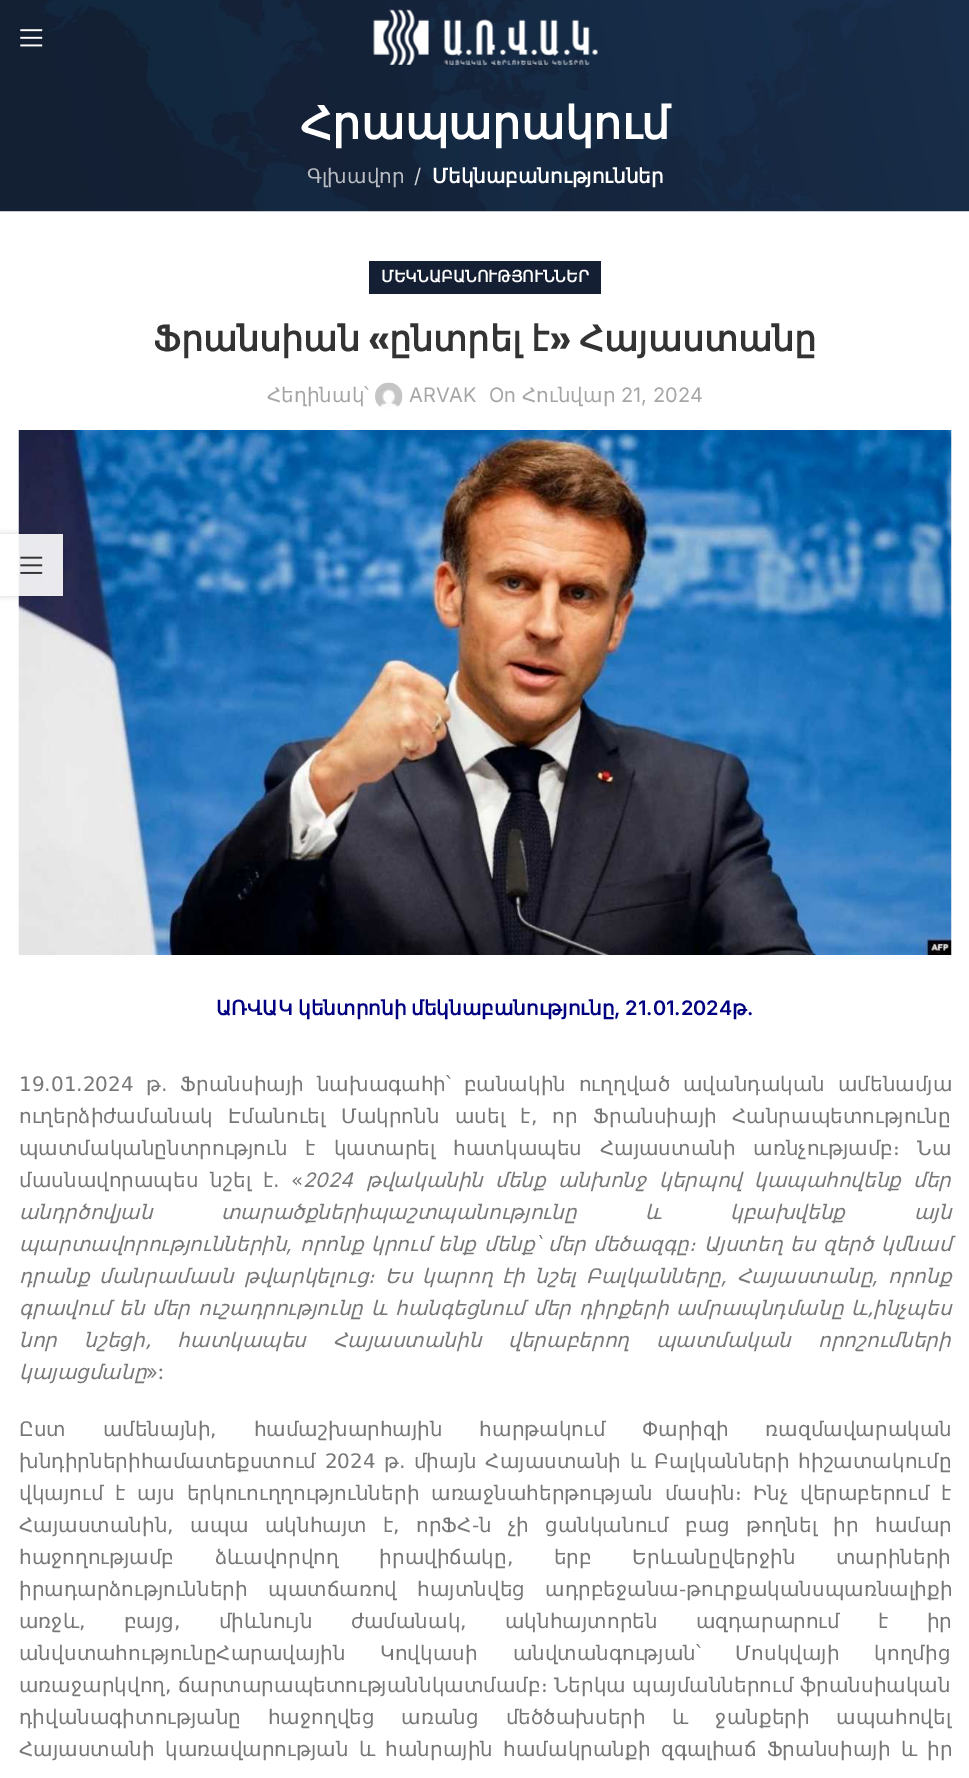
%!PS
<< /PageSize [969 1778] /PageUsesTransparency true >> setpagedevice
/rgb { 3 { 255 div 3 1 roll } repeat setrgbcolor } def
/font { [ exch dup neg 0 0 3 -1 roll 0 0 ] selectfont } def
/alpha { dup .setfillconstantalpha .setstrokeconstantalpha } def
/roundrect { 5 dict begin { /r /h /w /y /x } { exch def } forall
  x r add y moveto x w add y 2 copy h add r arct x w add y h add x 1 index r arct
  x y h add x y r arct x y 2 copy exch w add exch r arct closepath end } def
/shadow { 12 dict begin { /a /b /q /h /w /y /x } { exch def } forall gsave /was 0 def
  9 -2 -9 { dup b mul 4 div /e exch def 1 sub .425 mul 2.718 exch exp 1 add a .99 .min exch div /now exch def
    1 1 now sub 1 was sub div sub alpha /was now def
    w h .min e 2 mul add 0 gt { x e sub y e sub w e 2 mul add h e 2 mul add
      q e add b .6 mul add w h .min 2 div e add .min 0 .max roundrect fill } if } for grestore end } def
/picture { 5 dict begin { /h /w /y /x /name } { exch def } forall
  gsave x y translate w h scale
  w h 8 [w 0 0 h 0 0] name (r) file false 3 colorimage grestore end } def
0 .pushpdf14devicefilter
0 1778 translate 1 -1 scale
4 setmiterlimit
255 255 255 rgb
0 0 969 1778 rectfill
(img/3.rgb) 0 0 969 212 picture
(img/1.rgb) 20 29 23 18 picture
(img/2.rgb) 373 9 225 56 picture
20 31 51 rgb
369 261 232 33 rectfill
(img/4.rgb) 375 382 28 28 picture
(img/5.rgb) 18 430 934 525 picture
gsave
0 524 moveto 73 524 lineto 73 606 lineto 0 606 lineto closepath 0 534 moveto 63 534 lineto 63 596 lineto 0 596 lineto closepath eoclip newpath
0 0 0 rgb
0 534 63 62 0 3 0.17 shadow
grestore
0.9 alpha
255 255 255 rgb
18 534 45 62 rectfill
1 alpha
(img/6.rgb) 20 556 23 18 picture
/DejaVuSans-Bold 45 font
300 139 moveto (Հրապարակում) show
/DejaVuSans-Regular 20 font
184 189 195 rgb
307 183 moveto (Գլխավոր) show
/Inter-Regular 20 font
208 211 215 rgb
414 183 moveto (/) show
/DejaVuSans-Bold 20 font
255 255 255 rgb
432 183 moveto (Մեկնաբանություններ) show
/DejaVuSans-Bold 16 font
381 282 moveto (ՄԵԿՆԱԲԱՆՈՒԹՅՈՒՆՆԵՐ) show
/DejaVuSans-Bold 35 font
51 51 51 rgb
153 351 moveto (Ֆրանսիան) show
/EncodeSansCondensed-Bold 35 font
368 351 moveto («) show
/DejaVuSans-Bold 35 font
389 351 moveto -1 0 32 (ընտրել է) widthshow
/EncodeSansCondensed-Bold 35 font
550 351 moveto (») show
/DejaVuSans-Bold 35 font
579 351 moveto (Հայաստանը) show
/DejaVuSans-Regular 20 font
165 165 165 rgb
267 402 moveto (Հեղինակ՝) show
/Inter-Regular 20 font
409 402 moveto (ARVAK) show
489 402 moveto (On) show
/DejaVuSans-Regular 20 font
522 402 moveto (Հունվար) show
/Inter-Regular 20 font
621 402 moveto (21, 2024) show
/DejaVuSans-Bold 20 font
0 0 128 rgb
[
  [(ԱՌՎԱԿ) 216 1015]
  [(կենտրոնի) 298 1015]
  [(մեկնաբանությունը) 411 1015]
] { aload pop moveto show } forall
/Inter-SemiBold 20 font
614 1015 moveto (, 21.01.2024) show
/DejaVuSans-Bold 20 font
732 1015 moveto (թ) show
/Inter-SemiBold 20 font
747 1015 moveto (.) show
/DejaVuSans-Regular 20 font
119 119 119 rgb
19 1091 moveto 6.5 0 32 (19.01.2024 թ. Ֆրանսիայի նախագահի՝ բանակին ուղղված ավանդական ամենամյա) widthshow
19 1123 moveto 9 0 32 (ուղերձիժամանակ Էմանուել Մակրոնն ասել է, որ Ֆրանսիայի Հանրապետությունը) widthshow
19 1155 moveto 11.5 0 32 (պատմականընտրություն է կատարել հատկապես Հայաստանի առնչությամբ։ Նա) widthshow
19 1187 moveto 5.5 0 32 (մասնավորապես նշել է. «) widthshow
/Inter-Italic 20 font
303 1187 moveto (2024) show
/DejaVuSans-Italic 20 font
[
  [(թվականին) 366 1187]
  [(մենք) 495 1187]
  [(անխոնջ) 558 1187]
  [(կերպով) 659 1187]
  [(կապահովենք) 754 1187]
  [(մեր) 913 1187]
  [(անդրծովյան) 19 1219]
  [(տարածքներիպաշտպանությունը) 221 1219]
  [(և) 645 1219]
  [(կբախվենք) 730 1219]
  [(այն) 914 1219]
  [(պարտավորություններին) 19 1251]
] { aload pop moveto show } forall
/Inter-Italic 20 font
286 1251 moveto (,) show
/DejaVuSans-Italic 20 font
[
  [(որոնք) 300 1251]
  [(կրում) 371 1251]
  [(ենք) 438 1251]
  [(մենք՝) 484 1251]
  [(մեր) 548 1251]
  [(մեծազգը։) 593 1251]
  [(Այստեղ) 704 1251]
  [(ես) 790 1251]
  [(զերծ) 823 1251]
  [(կմնամ) 881 1251]
  [(դրանք) 19 1283]
  [(մանրամասն) 99 1283]
  [(թվարկելուց։) 244 1283]
  [(Ես) 385 1283]
  [(կարող) 422 1283]
  [(էի) 502 1283]
  [(նշել) 535 1283]
  [(Բալկանները) 586 1283]
] { aload pop moveto show } forall
/Inter-Italic 20 font
721 1283 moveto (,) show
/DejaVuSans-Italic 20 font
737 1283 moveto (Հայաստանը) show
/Inter-Italic 20 font
872 1283 moveto (,) show
/DejaVuSans-Italic 20 font
[
  [(որոնք) 888 1283]
  [(գրավում) 19 1315]
  [(են) 119 1315]
  [(մեր) 152 1315]
  [(ուշադրությունը) 198 1315]
  [(և) 371 1315]
  [(հանգեցնում) 395 1315]
  [(մեր) 533 1315]
  [(դիրքերի) 579 1315]
  [(ամրապնդմանը) 676 1315]
  [(և,) 851 1315]
  [(ինչպես) 873 1315]
  [(նոր) 19 1347]
] { aload pop moveto show } forall
84 1347 moveto 20 0 32 (նշեցի, հատկապես) widthshow
333 1347 moveto (Հայաստանին) show
508 1347 moveto 20.5 0 32 (վերաբերող պատմական) widthshow
818 1347 moveto (որոշումների) show
19 1379 moveto (կայացմանը) show
/Inter-Regular 20 font
146 1379 moveto (»:) show
/DejaVuSans-Regular 20 font
19 1436 moveto 30.5 0 32 (Ըստ ամենայնի, համաշխարհային հարթակում Փարիզի ռազմավարական) widthshow
19 1468 moveto 2.25 0 32 (խնդիրներիհամատեքստում 2024 թ. միայն Հայաստանի և Բալկանների հիշատակումը) widthshow
19 1500 moveto 5.5 0 32 (վկայում է այս երկուուղղությունների առաջնահերթության մասին։ Ինչ վերաբերում է) widthshow
19 1532 moveto 10 0 32 (Հայաստանին, ապա ակնհայտ է, որՖՀ-ն չի ցանկանում բաց թողնել իր համար) widthshow
19 1564 moveto 34.25 0 32 (հաջողությամբ ձևավորվող իրավիճակը, երբ Երևանըվերջին տարիների) widthshow
19 1596 moveto 14 0 32 (իրադարձությունների պատճառով հայտնվեց ադրբեջանա-թուրքականսպառնալիքի) widthshow
19 1628 moveto 32 0 32 (առջև, բայց, միևնույն ժամանակ, ակնհայտորեն ազդարարում է իր) widthshow
19 1660 moveto 28.5 0 32 (անվստահությունըՀարավային Կովկասի անվտանգության՝ Մոսկվայի կողմից) widthshow
19 1692 moveto (առաջարկվող, ճարտարապետությաննկատմամբ։ Ներկա պայմաններում ֆրանսիական) show
19 1724 moveto 20.5 0 32 (դիվանագիտությանը հաջողվեց առանց մեծծախսերի և ջանքերի ապահովել) widthshow
19 1756 moveto 4 0 32 (Հայաստանի կառավարության և հանրային համակրանքի զգալիաճ Ֆրանսիայի և իր) widthshow
.poppdf14devicefilter showpage
